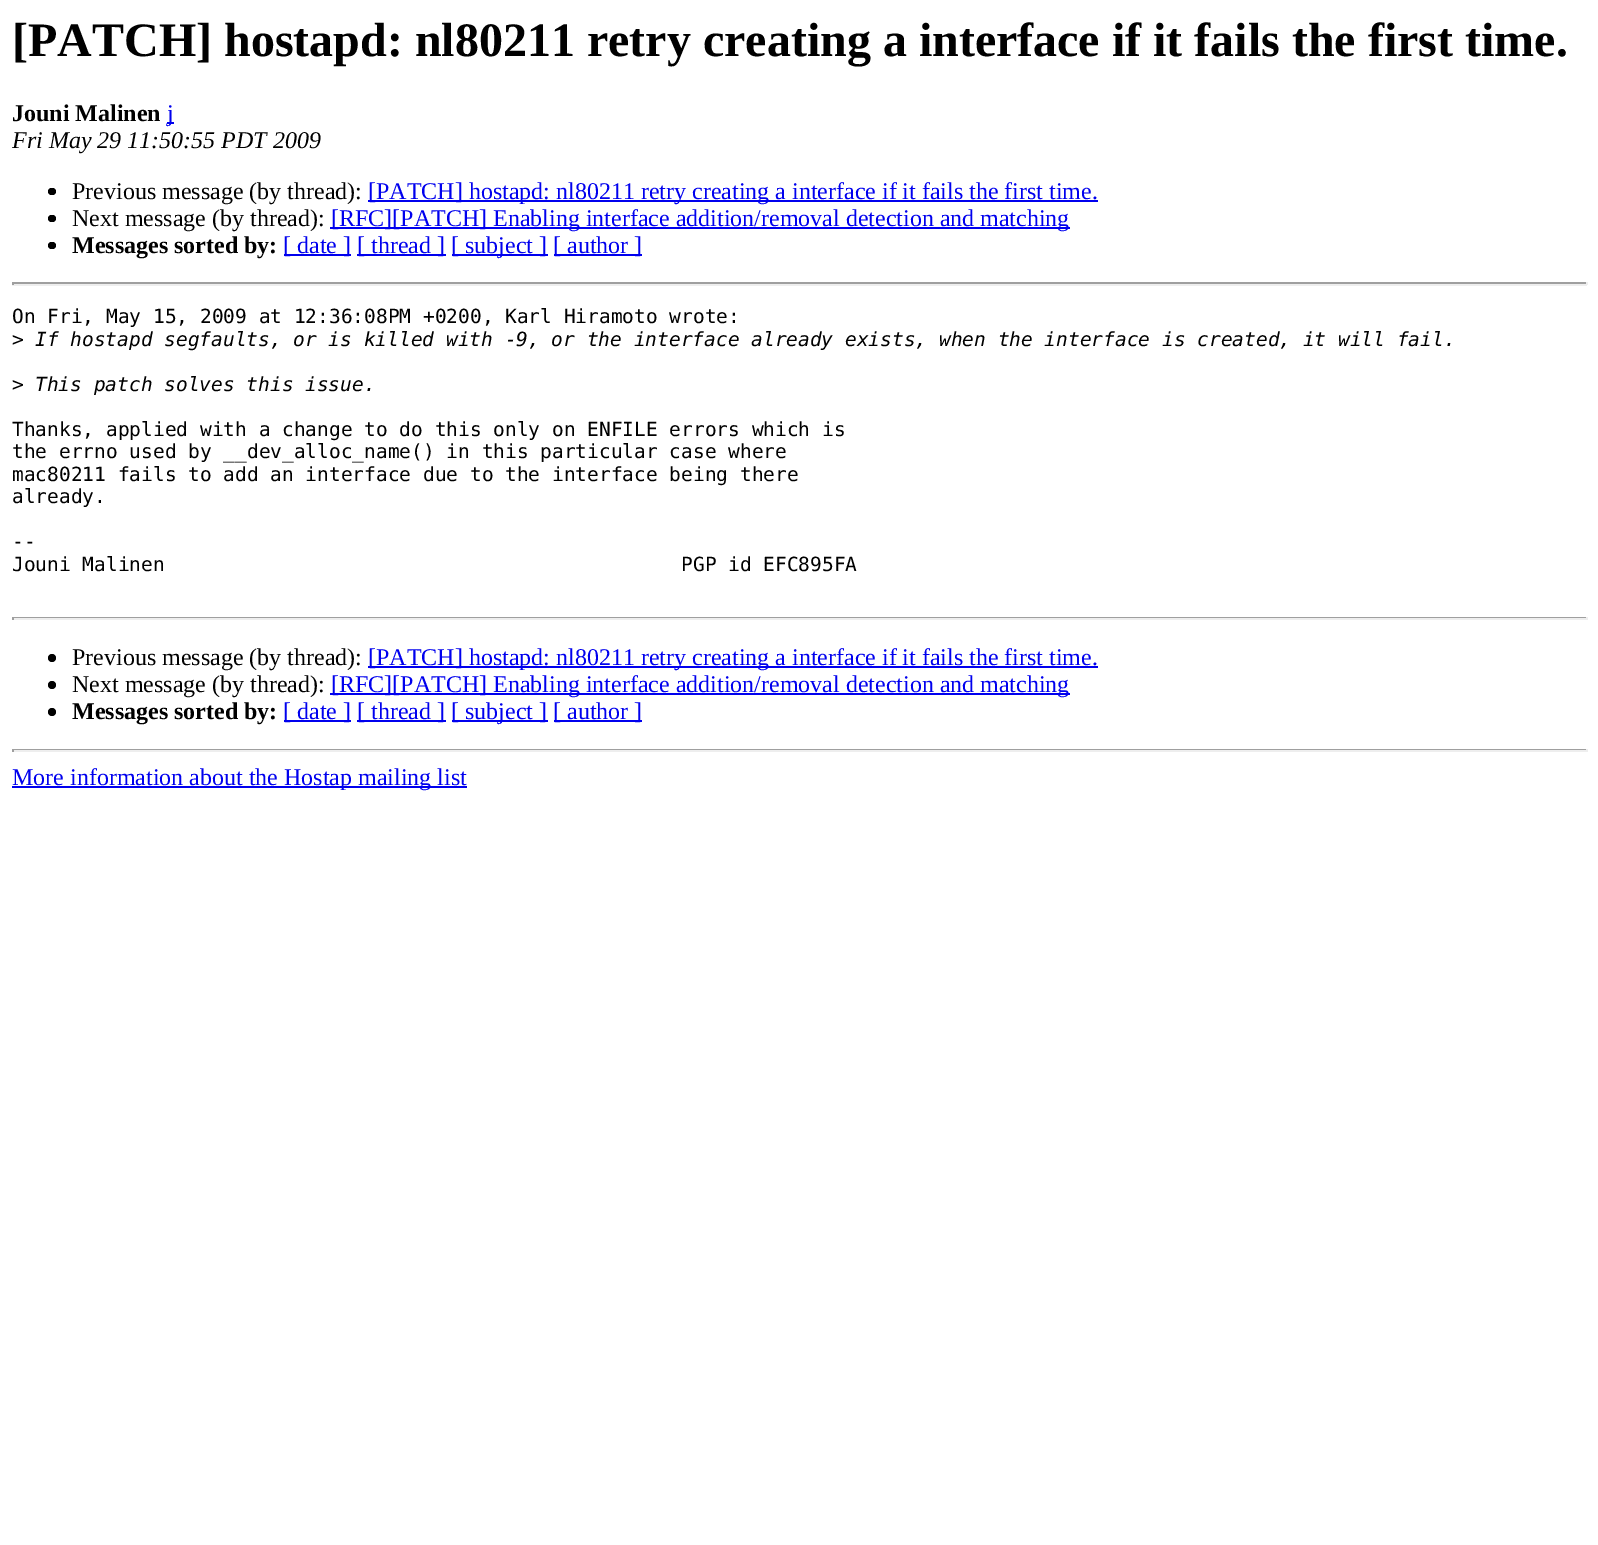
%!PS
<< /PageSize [1598 1545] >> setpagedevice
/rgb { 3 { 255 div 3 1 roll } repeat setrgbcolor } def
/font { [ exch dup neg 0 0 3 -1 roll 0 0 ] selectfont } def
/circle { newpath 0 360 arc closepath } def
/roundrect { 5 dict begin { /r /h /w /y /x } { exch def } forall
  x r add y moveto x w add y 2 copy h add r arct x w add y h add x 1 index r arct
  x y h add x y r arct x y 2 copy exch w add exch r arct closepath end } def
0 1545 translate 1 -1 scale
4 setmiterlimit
255 255 255 rgb
0 0 1598 1545 rectfill
0 0 238 rgb
167 122 7 2 rectfill
0 0 0 rgb
48 188 8 7 3.5 roundrect fill
0 0 238 rgb
368 200 730 2 rectfill
0 0 0 rgb
48 215 8 7 3.5 roundrect fill
0 0 238 rgb
330 227 740 2 rectfill
0 0 0 rgb
48 242 8 7 3.5 roundrect fill
[
  [284 254 67 2 0 0 238]
  [357 254 89 2 0 0 238]
  [452 254 96 2 0 0 238]
  [554 254 88 2 0 0 238]
  [12 282 1575 2 159 159 159]
  [1586 282 2 3 238 238 238]
  [12 284 1575 2 238 238 238]
  [12 282 2 3 159 159 159]
  [12 617 1575 1 159 159 159]
  [1586 617 2 3 238 238 238]
  [12 618 1575 2 238 238 238]
  [12 617 2 3 159 159 159]
] { aload pop rgb rectfill } forall
0 0 0 rgb
52 658 4 circle fill
0 0 238 rgb
368 666 730 2 rectfill
0 0 0 rgb
52 685 4 circle fill
0 0 238 rgb
330 693 740 2 rectfill
0 0 0 rgb
52 712 4 circle fill
[
  [284 720 67 2 0 0 238]
  [357 720 89 2 0 0 238]
  [452 720 96 2 0 0 238]
  [554 720 88 2 0 0 238]
  [12 749 1575 1 159 159 159]
  [1586 749 2 3 238 238 238]
  [12 750 1575 2 238 238 238]
  [12 749 2 3 159 159 159]
  [12 786 455 2 0 0 238]
] { aload pop rgb rectfill } forall
/LiberationSerif-Bold 48 font
0 0 0 rgb
12 56 moveto ([PATCH] hostapd: nl80211 retry creating a interface if it fails the first time.) show
/LiberationSerif-Bold 24 font
12 121 moveto (Jouni Malinen) show
/LiberationSerif-Regular 24 font
0 0 238 rgb
167 121 moveto (j) show
/LiberationSerif-Italic 24 font
0 0 0 rgb
12 148 moveto (Fri May 29 11:50:55 PDT 2009) show
/LiberationSerif-Regular 24 font
72 199 moveto (Previous message \(by thread\):) show
0 0 238 rgb
368 199 moveto ([PATCH] hostapd: nl80211 retry creating a interface if it fails the first time.) show
0 0 0 rgb
72 226 moveto (Next message \(by thread\):) show
0 0 238 rgb
331 226 moveto ([RFC][PATCH] Enabling interface addition/removal detection and matching) show
/LiberationSerif-Bold 24 font
0 0 0 rgb
72 253 moveto (Messages sorted by:) show
/LiberationSerif-Regular 24 font
0 0 238 rgb
[
  [([ date ]) 283 253]
  [([ thread ]) 357 253]
  [([ subject ]) 451 253]
  [([ author ]) 553 253]
] { aload pop moveto show } forall
/DejaVuSansMono-Regular 19.5 font
0 0 0 rgb
12 323 moveto (On Fri, May 15, 2009 at 12:36:08PM +0200, Karl Hiramoto wrote:) show
12 346 moveto (>) show
/DejaVuSansMono-Italic 19.5 font
35 346 moveto (If hostapd segfaults, or is killed with -9, or the interface already exists, when the interface is created, it will fail.) show
/DejaVuSansMono-Regular 19.5 font
12 391 moveto (>) show
/DejaVuSansMono-Italic 19.5 font
35 391 moveto (This patch solves this issue.) show
/DejaVuSansMono-Regular 19.5 font
[
  [(Thanks, applied with a change to do this only on ENFILE errors which is) 12 436]
  [(the errno used by __dev_alloc_name\(\) in this particular case where) 12 458]
  [(mac80211 fails to add an interface due to the interface being there) 12 481]
  [(already.) 12 503]
  [(--) 12 548]
  [(Jouni Malinen                                            PGP id EFC895FA) 12 571]
] { aload pop moveto show } forall
/LiberationSerif-Regular 24 font
72 665 moveto (Previous message \(by thread\):) show
0 0 238 rgb
368 665 moveto ([PATCH] hostapd: nl80211 retry creating a interface if it fails the first time.) show
0 0 0 rgb
72 692 moveto (Next message \(by thread\):) show
0 0 238 rgb
331 692 moveto ([RFC][PATCH] Enabling interface addition/removal detection and matching) show
/LiberationSerif-Bold 24 font
0 0 0 rgb
72 719 moveto (Messages sorted by:) show
/LiberationSerif-Regular 24 font
0 0 238 rgb
[
  [([ date ]) 283 719]
  [([ thread ]) 357 719]
  [([ subject ]) 451 719]
  [([ author ]) 553 719]
  [(More information about the Hostap mailing list) 12 785]
] { aload pop moveto show } forall
showpage
